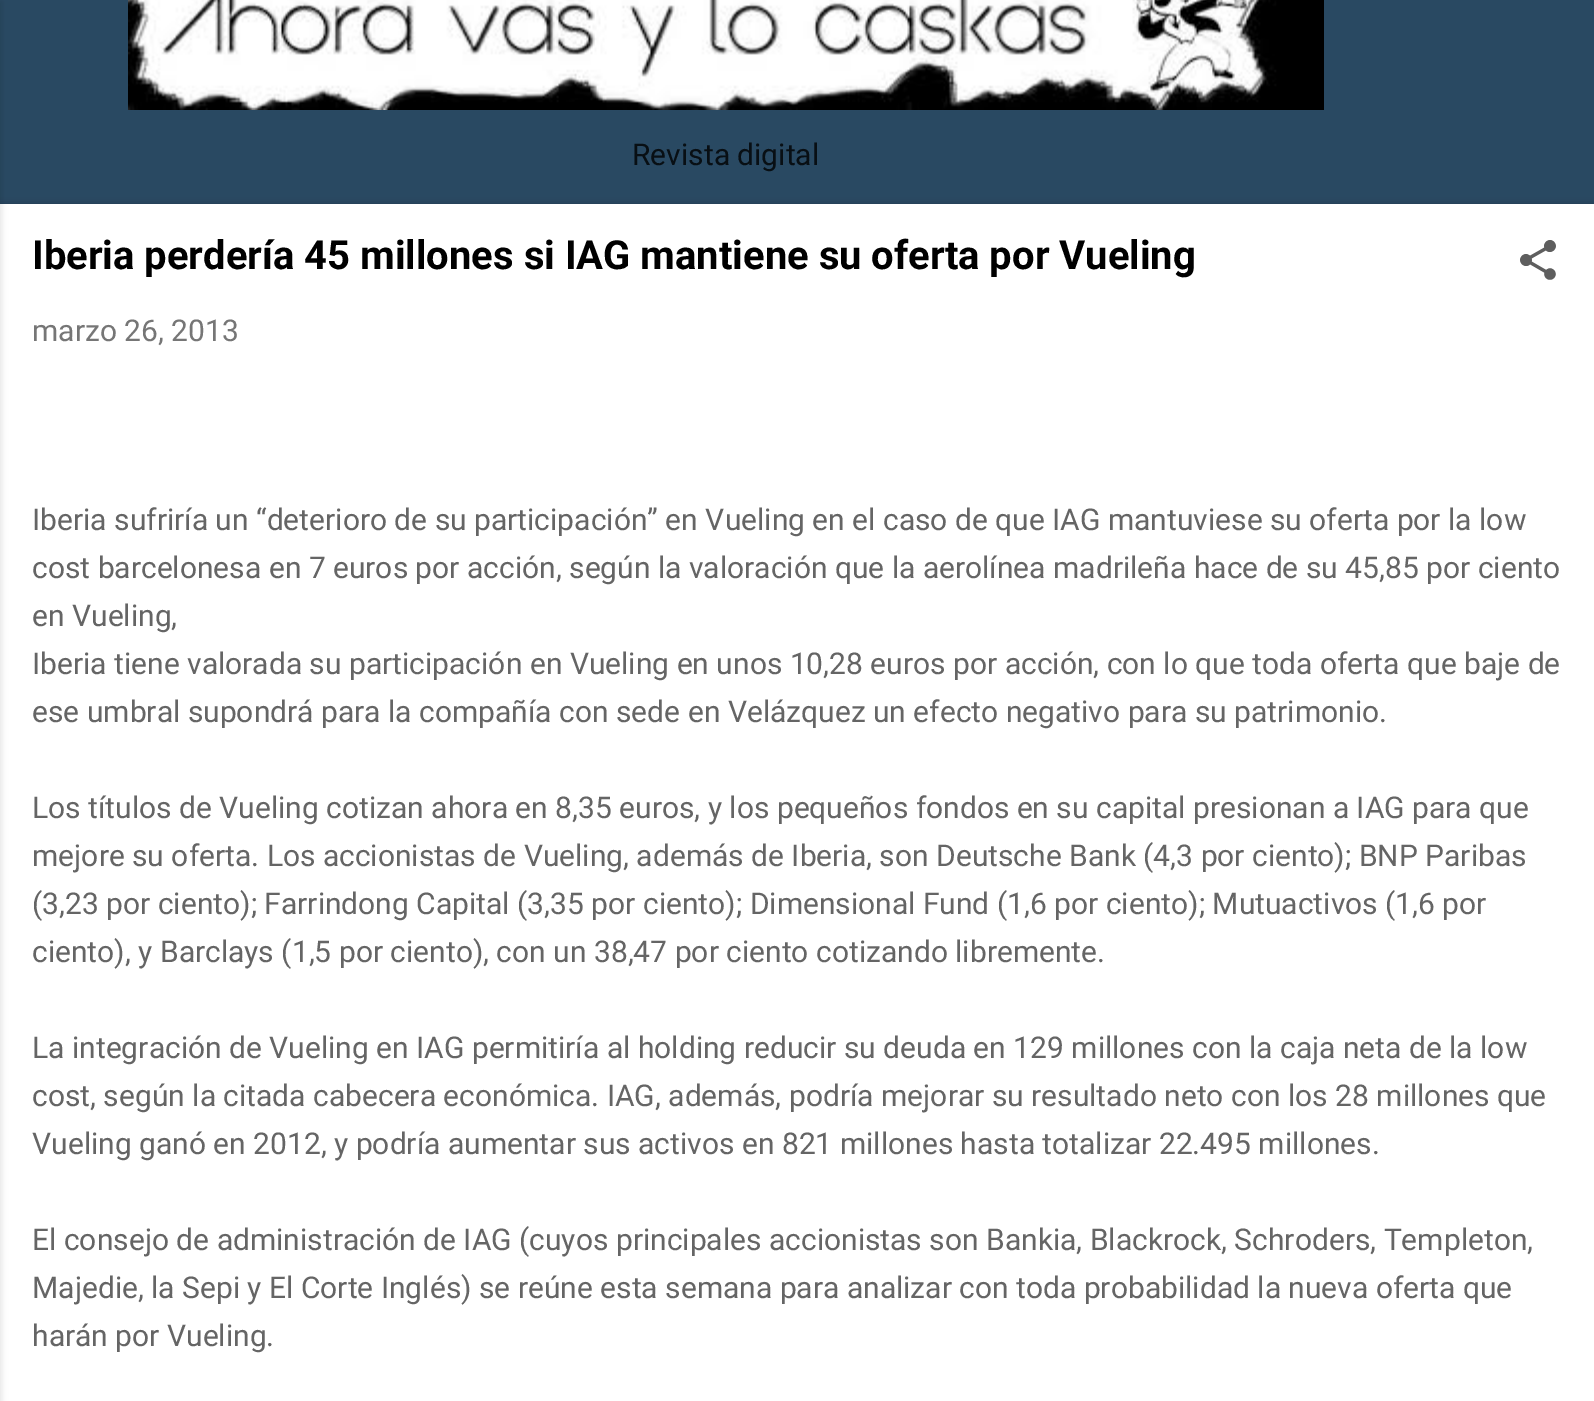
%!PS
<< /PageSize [1594 1401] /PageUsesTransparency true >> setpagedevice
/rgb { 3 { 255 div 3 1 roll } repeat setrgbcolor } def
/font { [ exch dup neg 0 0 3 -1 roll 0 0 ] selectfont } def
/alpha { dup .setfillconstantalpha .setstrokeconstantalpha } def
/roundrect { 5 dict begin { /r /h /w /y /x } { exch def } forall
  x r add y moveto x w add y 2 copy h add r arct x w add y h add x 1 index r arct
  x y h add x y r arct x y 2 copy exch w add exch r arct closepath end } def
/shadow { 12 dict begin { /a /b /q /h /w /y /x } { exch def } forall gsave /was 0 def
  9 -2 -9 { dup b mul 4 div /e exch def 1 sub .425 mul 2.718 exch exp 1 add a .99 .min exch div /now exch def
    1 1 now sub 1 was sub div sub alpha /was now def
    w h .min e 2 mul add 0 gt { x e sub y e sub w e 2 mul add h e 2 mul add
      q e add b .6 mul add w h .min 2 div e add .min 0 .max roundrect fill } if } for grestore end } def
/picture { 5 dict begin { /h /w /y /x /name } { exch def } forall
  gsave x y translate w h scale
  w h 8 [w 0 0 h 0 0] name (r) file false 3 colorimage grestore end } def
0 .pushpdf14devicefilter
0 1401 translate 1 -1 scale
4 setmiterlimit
41 73 98 rgb
0 0 1594 1401 rectfill
0 0 0 rgb
0 206 1594 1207 0 4 0.3 shadow
255 255 255 rgb
0 204 1594 1197 rectfill
0 0 0 rgb
-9 2 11 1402 0 3 0.1 shadow
(img/1.rgb) 128 0 1196 110 picture
(img/2.rgb) 1520 240 36 40 picture
/Roboto-Regular 30 font
8 15 20 rgb
632 165 moveto (Revista digital) show
/Roboto-Bold 40 font
0 0 0 rgb
32 269 moveto (Iberia perdería 45 millones si IAG mantiene su oferta por Vueling) show
/Roboto-Regular 30 font
118 118 118 rgb
32 341 moveto (marzo 26, 2013) show
101 101 101 rgb
[
  [(Iberia sufriría un “deterioro de su participación” en Vueling en el caso de que IAG mantuviese su oferta por la low) 32 530]
  [(cost barcelonesa en 7 euros por acción, según la valoración que la aerolínea madrileña hace de su 45,85 por ciento) 32 578]
  [(en Vueling,) 32 626]
  [(Iberia tiene valorada su participación en Vueling en unos 10,28 euros por acción, con lo que toda oferta que baje de) 32 674]
  [(ese umbral supondrá para la compañía con sede en Velázquez un efecto negativo para su patrimonio.) 32 722]
  [(Los títulos de Vueling cotizan ahora en 8,35 euros, y los pequeños fondos en su capital presionan a IAG para que) 32 818]
  [(mejore su oferta. Los accionistas de Vueling, además de Iberia, son Deutsche Bank \(4,3 por ciento\); BNP Paribas) 32 866]
  [(\(3,23 por ciento\); Farrindong Capital \(3,35 por ciento\); Dimensional Fund \(1,6 por ciento\); Mutuactivos \(1,6 por) 32 914]
  [(ciento\), y Barclays \(1,5 por ciento\), con un 38,47 por ciento cotizando libremente.) 32 962]
  [(La integración de Vueling en IAG permitiría al holding reducir su deuda en 129 millones con la caja neta de la low) 32 1058]
  [(cost, según la citada cabecera económica. IAG, además, podría mejorar su resultado neto con los 28 millones que) 32 1106]
  [(Vueling ganó en 2012, y podría aumentar sus activos en 821 millones hasta totalizar 22.495 millones.) 32 1154]
  [(El consejo de administración de IAG \(cuyos principales accionistas son Bankia, Blackrock, Schroders, Templeton,) 32 1250]
  [(Majedie, la Sepi y El Corte Inglés\) se reúne esta semana para analizar con toda probabilidad la nueva oferta que) 32 1298]
  [(harán por Vueling.) 32 1346]
] { aload pop moveto show } forall
.poppdf14devicefilter showpage
